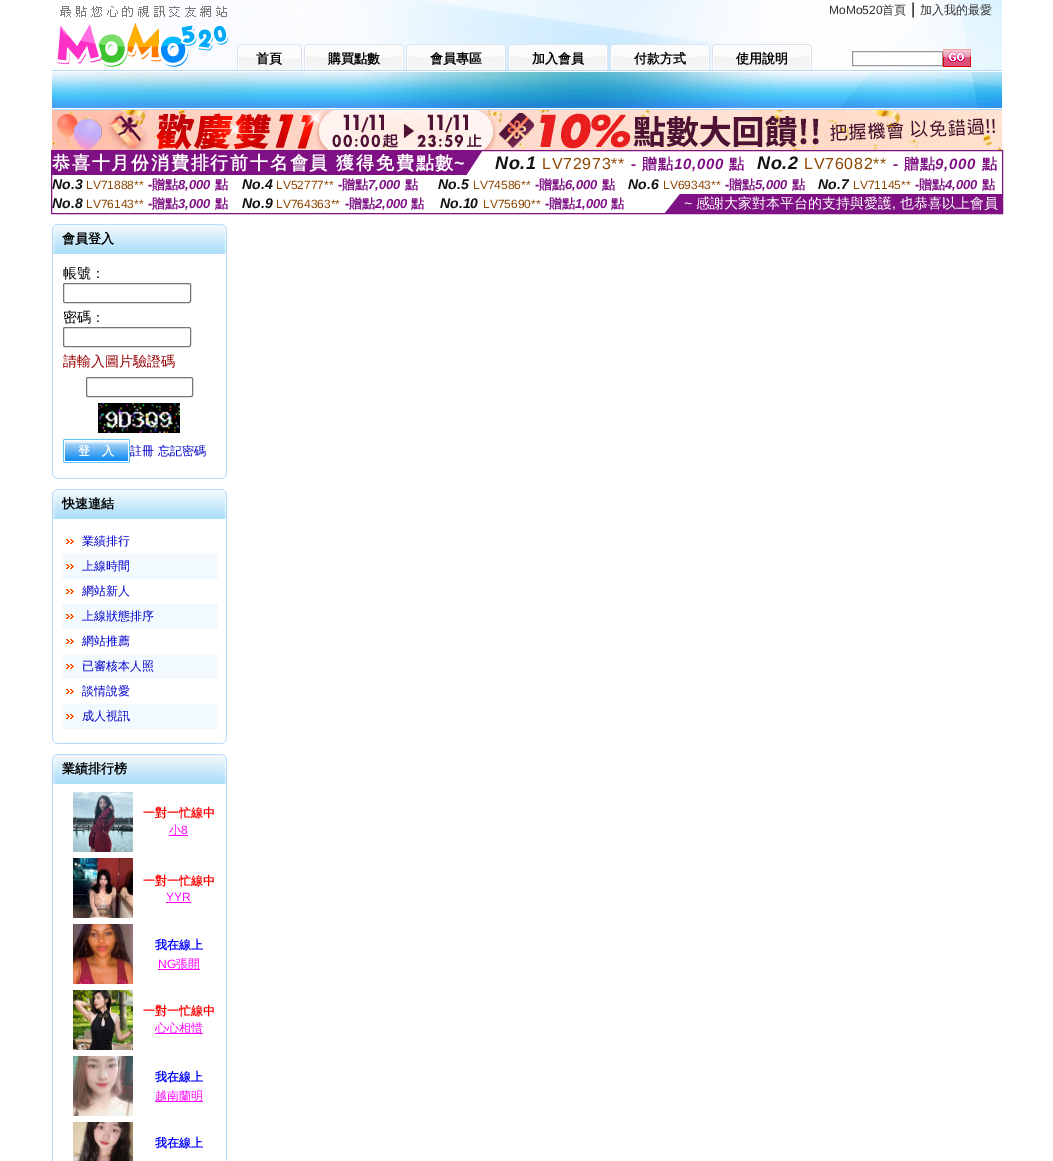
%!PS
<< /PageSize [1053 1161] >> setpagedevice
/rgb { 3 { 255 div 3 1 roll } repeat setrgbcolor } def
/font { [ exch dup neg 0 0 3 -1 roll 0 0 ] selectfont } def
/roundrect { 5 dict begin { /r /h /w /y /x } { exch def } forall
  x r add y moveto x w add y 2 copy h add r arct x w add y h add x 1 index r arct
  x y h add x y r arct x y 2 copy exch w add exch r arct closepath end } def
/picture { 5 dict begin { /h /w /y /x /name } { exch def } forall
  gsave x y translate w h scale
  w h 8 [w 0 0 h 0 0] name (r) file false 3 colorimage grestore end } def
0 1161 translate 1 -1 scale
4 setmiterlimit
255 255 255 rgb
0 0 1053 1161 rectfill
(img/1.rgb) 152 0 850 70 picture
(img/2.rgb) 57 6 172 61 picture
(img/3.rgb) 237 44 65 26 picture
(img/4.rgb) 304 44 100 26 picture
(img/5.rgb) 406 44 100 26 picture
(img/6.rgb) 508 44 100 26 picture
(img/7.rgb) 610 44 100 26 picture
(img/8.rgb) 712 44 100 26 picture
879 52 63 13 rectfill
153 153 153 rgb
852.5 51.5 90 14 rectstroke
(img/9.rgb) 943 49 28 18 picture
(img/10.rgb) 52 70 950 40 picture
(img/11.rgb) 52 110 950 40 picture
127 17 132 rgb
51.5 150.5 951 63 rectstroke
52 151 415 24 rectfill
126 17 132 rgb
467 151 moveto 482 151 lineto 467 174 lineto closepath fill
680 213 moveto 665 213 lineto 680 194 lineto closepath fill
127 17 132 rgb
680 194 322 19 rectfill
(img/12.rgb) 52 224 5 30 picture
(img/13.rgb) 57 224 165 30 picture
(img/14.rgb) 222 224 5 30 picture
176 216 255 rgb
52 254 1 215 rectfill
118 118 118 rgb
63.5 283.5 127 19 1.5 roundrect stroke
63.5 327.5 127 19 1.5 roundrect stroke
86.5 377.5 106 19 1.5 roundrect stroke
(img/15.rgb) 98 403 82 30 picture
181 218 255 rgb
226 254 1 215 rectfill
(img/17.rgb) 52 469 5 10 picture
(img/18.rgb) 57 477 165 2 picture
(img/19.rgb) 222 469 5 10 picture
(img/12.rgb) 52 489 5 30 picture
(img/13.rgb) 57 489 165 30 picture
(img/14.rgb) 222 489 5 30 picture
176 216 255 rgb
52 519 1 215 rectfill
(img/20.rgb) 66 539 8 5 picture
242 249 255 rgb
62 554 156 25 rectfill
(img/20.rgb) 66 564 8 5 picture
(img/20.rgb) 66 589 8 5 picture
62 604 156 25 rectfill
(img/20.rgb) 66 614 8 5 picture
(img/20.rgb) 66 639 8 5 picture
62 654 156 25 rectfill
(img/20.rgb) 66 664 8 5 picture
(img/20.rgb) 66 689 8 5 picture
62 704 156 25 rectfill
(img/20.rgb) 66 714 8 5 picture
181 218 255 rgb
226 519 1 215 rectfill
(img/17.rgb) 52 734 5 10 picture
(img/18.rgb) 57 742 165 2 picture
(img/19.rgb) 222 734 5 10 picture
(img/12.rgb) 52 754 5 30 picture
(img/13.rgb) 57 754 165 30 picture
(img/14.rgb) 222 754 5 30 picture
176 216 255 rgb
52 784 1 377 rectfill
(img/21.rgb) 73 792 60 60 picture
255 0 255 rgb
169 835 19 1 rectfill
(img/22.rgb) 73 858 60 60 picture
166 902 25 1 rectfill
(img/23.rgb) 73 924 60 60 picture
158 969 42 1 rectfill
(img/24.rgb) 73 990 60 60 picture
155 1033 48 1 rectfill
(img/25.rgb) 73 1056 60 60 picture
155 1101 48 1 rectfill
(img/26.rgb) 73 1122 60 39 picture
181 218 255 rgb
226 784 1 377 rectfill
/LiberationSans-Regular 12 font
51 51 51 rgb
829 14 moveto (MoMo520) show
/WenQuanYiZenHei-Medium 12 font
882 14 moveto (首頁) show
/LiberationSans-Regular 16 font
0 0 0 rgb
911 14 moveto (|) show
/WenQuanYiZenHei-Medium 12 font
51 51 51 rgb
920 14 moveto (加入我的最愛) show
/WenQuanYiZenHei-Bold 13 font
0 0 0 rgb
[
  [(首頁) 256 63]
  [(購買點數) 328 63]
  [(會員專區) 430 63]
  [(加入會員) 532 63]
  [(付款方式) 634 63]
  [(使用說明) 736 63]
] { aload pop moveto show } forall
/WenQuanYiZenHei-Bold 18 font
255 255 255 rgb
52 169 moveto 1.8 0 (恭喜十月份消費排行前十名會員 獲得免費點數) ashow
/LiberationSans-Bold 18 font
454 169 moveto 1.8 0 (~) ashow
/LiberationSans-BoldItalic 18 font
17 17 17 rgb
495 169 moveto 0.75 0 (No.1) ashow
/LiberationSans-Regular 16 font
140 70 0 rgb
542 169 moveto 0.75 0 (LV72973**) ashow
/LiberationSans-Bold 15 font
127 17 132 rgb
631 169 moveto 0.75 0 (-) ashow
/WenQuanYiZenHei-Bold 15 font
642 169 moveto 0.75 0 (贈點) ashow
/LiberationSans-BoldItalic 15 font
674 169 moveto 0.75 0 (10,000) ashow
/WenQuanYiZenHei-Bold 15 font
729 169 moveto 0.75 0 (點) ashow
/LiberationSans-BoldItalic 18 font
17 17 17 rgb
757 169 moveto 0.75 0 (No.2) ashow
/LiberationSans-Regular 16 font
140 70 0 rgb
804 169 moveto 0.75 0 (LV76082**) ashow
/LiberationSans-Bold 15 font
127 17 132 rgb
893 169 moveto 0.75 0 (-) ashow
/WenQuanYiZenHei-Bold 15 font
904 169 moveto 0.75 0 (贈點) ashow
/LiberationSans-BoldItalic 15 font
935 169 moveto 0.75 0 (9,000) ashow
/WenQuanYiZenHei-Bold 15 font
982 169 moveto 0.75 0 (點) ashow
/LiberationSans-BoldItalic 14 font
17 17 17 rgb
52 189 moveto (No.3) show
/LiberationSans-Regular 12 font
140 70 0 rgb
86 189 moveto (LV71888**) show
/LiberationSans-Bold 13 font
127 17 132 rgb
148 189 moveto (-) show
/WenQuanYiZenHei-Bold 13 font
152 189 moveto (贈點) show
/LiberationSans-BoldItalic 13 font
178 189 moveto (8,000) show
/WenQuanYiZenHei-Bold 13 font
215 189 moveto (點) show
/LiberationSans-BoldItalic 14 font
17 17 17 rgb
242 189 moveto (No.4) show
/LiberationSans-Regular 12 font
140 70 0 rgb
276 189 moveto (LV52777**) show
/LiberationSans-Bold 13 font
127 17 132 rgb
338 189 moveto (-) show
/WenQuanYiZenHei-Bold 13 font
342 189 moveto (贈點) show
/LiberationSans-BoldItalic 13 font
368 189 moveto (7,000) show
/WenQuanYiZenHei-Bold 13 font
405 189 moveto (點) show
/LiberationSans-BoldItalic 14 font
17 17 17 rgb
438 189 moveto (No.5) show
/LiberationSans-Regular 12 font
140 70 0 rgb
473 189 moveto (LV74586**) show
/LiberationSans-Bold 13 font
127 17 132 rgb
535 189 moveto (-) show
/WenQuanYiZenHei-Bold 13 font
539 189 moveto (贈點) show
/LiberationSans-BoldItalic 13 font
565 189 moveto (6,000) show
/WenQuanYiZenHei-Bold 13 font
602 189 moveto (點) show
/LiberationSans-BoldItalic 14 font
17 17 17 rgb
628 189 moveto (No.6) show
/LiberationSans-Regular 12 font
140 70 0 rgb
663 189 moveto (LV69343**) show
/LiberationSans-Bold 13 font
127 17 132 rgb
725 189 moveto (-) show
/WenQuanYiZenHei-Bold 13 font
729 189 moveto (贈點) show
/LiberationSans-BoldItalic 13 font
755 189 moveto (5,000) show
/WenQuanYiZenHei-Bold 13 font
792 189 moveto (點) show
/LiberationSans-BoldItalic 14 font
17 17 17 rgb
818 189 moveto (No.7) show
/LiberationSans-Regular 12 font
140 70 0 rgb
853 189 moveto (LV71145**) show
/LiberationSans-Bold 13 font
127 17 132 rgb
915 189 moveto (-) show
/WenQuanYiZenHei-Bold 13 font
919 189 moveto (贈點) show
/LiberationSans-BoldItalic 13 font
945 189 moveto (4,000) show
/WenQuanYiZenHei-Bold 13 font
982 189 moveto (點) show
/LiberationSans-BoldItalic 14 font
17 17 17 rgb
52 208 moveto (No.8) show
/LiberationSans-Regular 12 font
140 70 0 rgb
86 208 moveto (LV76143**) show
/LiberationSans-Bold 13 font
127 17 132 rgb
148 208 moveto (-) show
/WenQuanYiZenHei-Bold 13 font
152 208 moveto (贈點) show
/LiberationSans-BoldItalic 13 font
178 208 moveto (3,000) show
/WenQuanYiZenHei-Bold 13 font
215 208 moveto (點) show
/LiberationSans-BoldItalic 14 font
17 17 17 rgb
242 208 moveto (No.9) show
/LiberationSans-Regular 12 font
140 70 0 rgb
276 208 moveto (LV764363**) show
/LiberationSans-Bold 13 font
127 17 132 rgb
345 208 moveto (-) show
/WenQuanYiZenHei-Bold 13 font
349 208 moveto (贈點) show
/LiberationSans-BoldItalic 13 font
375 208 moveto (2,000) show
/WenQuanYiZenHei-Bold 13 font
411 208 moveto (點) show
/LiberationSans-BoldItalic 14 font
17 17 17 rgb
440 208 moveto (No.10) show
/LiberationSans-Regular 12 font
140 70 0 rgb
483 208 moveto (LV75690**) show
/LiberationSans-Bold 13 font
127 17 132 rgb
545 208 moveto (-) show
/WenQuanYiZenHei-Bold 13 font
549 208 moveto (贈點) show
/LiberationSans-BoldItalic 13 font
575 208 moveto (1,000) show
/WenQuanYiZenHei-Bold 13 font
611 208 moveto (點) show
/LiberationSans-Regular 14 font
255 255 255 rgb
684 208 moveto (~) show
/WenQuanYiZenHei-Medium 14 font
696 208 moveto (感謝大家對本平台的支持與愛護) show
900 208 moveto (也恭喜以上會員) show
/LiberationSans-Regular 14 font
892 208 moveto (,) show
/WenQuanYiZenHei-Bold 13 font
0 0 0 rgb
62 243 moveto (會員登入) show
/WenQuanYiZenHei-Medium 14 font
63 278 moveto (帳號：) show
63 322 moveto (密碼：) show
153 0 0 rgb
63 366 moveto (請輸入圖片驗證碼) show
/WenQuanYiZenHei-Medium 12 font
0 0 204 rgb
130 455 moveto (註冊) show
(img/16.rgb) 63 439 67 24 picture
/WenQuanYiZenHei-Bold 12 font
255 255 255 rgb
78 455 moveto (登　入) show
/WenQuanYiZenHei-Medium 12 font
0 0 204 rgb
158 455 moveto (忘記密碼) show
/WenQuanYiZenHei-Bold 13 font
0 0 0 rgb
62 508 moveto (快速連結) show
/WenQuanYiZenHei-Medium 12 font
0 0 204 rgb
[
  [(業績排行) 82 545]
  [(上線時間) 82 570]
  [(網站新人) 82 595]
  [(上線狀態排序) 82 620]
  [(網站推薦) 82 645]
  [(已審核本人照) 82 670]
  [(談情說愛) 82 695]
  [(成人視訊) 82 720]
] { aload pop moveto show } forall
/WenQuanYiZenHei-Bold 13 font
0 0 0 rgb
62 773 moveto (業績排行榜) show
/WenQuanYiZenHei-Bold 12 font
255 0 0 rgb
143 817 moveto (一對一忙線中) show
/WenQuanYiZenHei-Medium 12 font
255 0 255 rgb
169 834 moveto (小) show
/LiberationSans-Regular 12 font
181 834 moveto (8) show
/WenQuanYiZenHei-Bold 12 font
255 0 0 rgb
143 885 moveto (一對一忙線中) show
/LiberationSans-Regular 12 font
255 0 255 rgb
166 901 moveto (YYR) show
/WenQuanYiZenHei-Bold 12 font
0 0 255 rgb
155 949 moveto (我在線上) show
/LiberationSans-Regular 12 font
255 0 255 rgb
158 968 moveto (NG) show
/WenQuanYiZenHei-Medium 12 font
176 968 moveto (張開) show
/WenQuanYiZenHei-Bold 12 font
255 0 0 rgb
143 1015 moveto (一對一忙線中) show
/WenQuanYiZenHei-Medium 12 font
255 0 255 rgb
155 1032 moveto (心心相惜) show
/WenQuanYiZenHei-Bold 12 font
0 0 255 rgb
155 1081 moveto (我在線上) show
/WenQuanYiZenHei-Medium 12 font
255 0 255 rgb
155 1100 moveto (越南蘭明) show
/WenQuanYiZenHei-Bold 12 font
0 0 255 rgb
155 1147 moveto (我在線上) show
showpage
